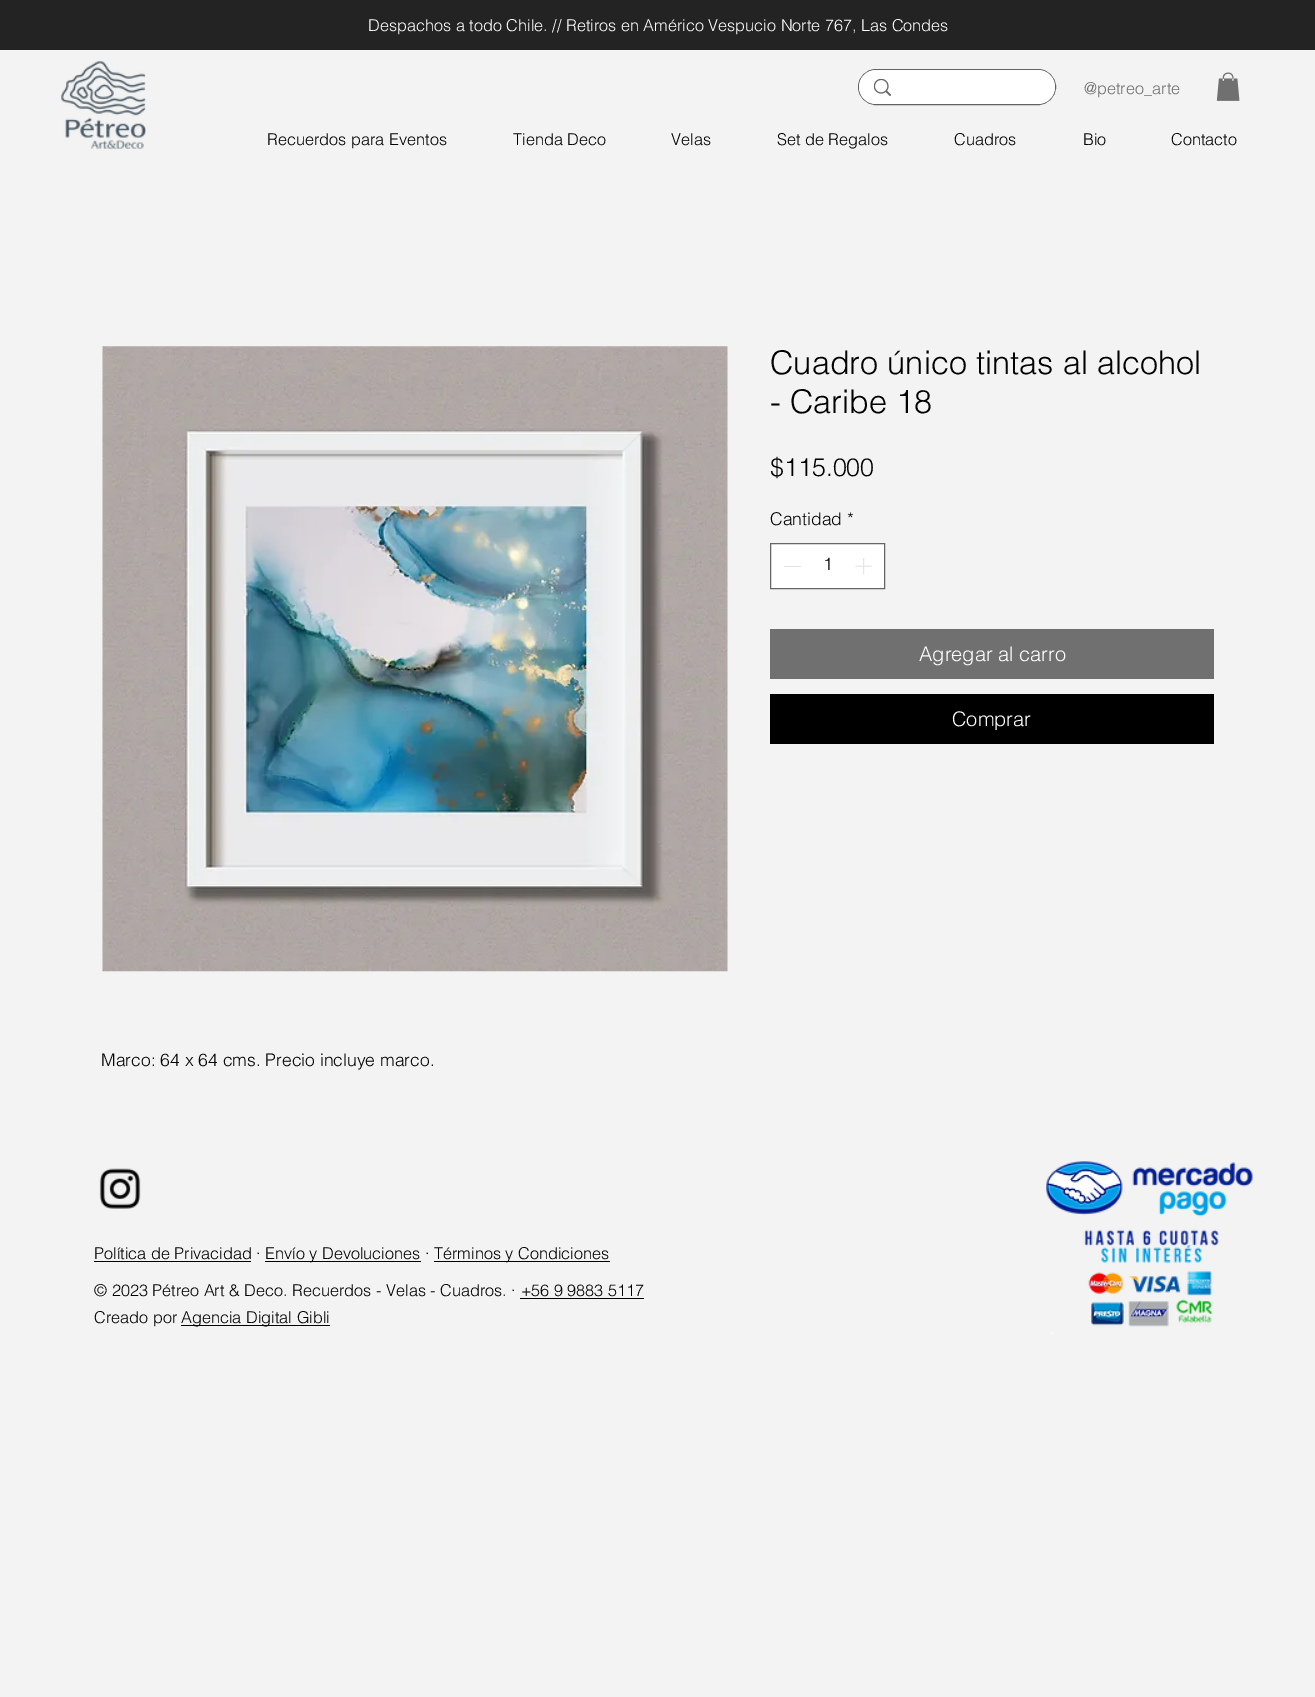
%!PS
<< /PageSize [1315 1697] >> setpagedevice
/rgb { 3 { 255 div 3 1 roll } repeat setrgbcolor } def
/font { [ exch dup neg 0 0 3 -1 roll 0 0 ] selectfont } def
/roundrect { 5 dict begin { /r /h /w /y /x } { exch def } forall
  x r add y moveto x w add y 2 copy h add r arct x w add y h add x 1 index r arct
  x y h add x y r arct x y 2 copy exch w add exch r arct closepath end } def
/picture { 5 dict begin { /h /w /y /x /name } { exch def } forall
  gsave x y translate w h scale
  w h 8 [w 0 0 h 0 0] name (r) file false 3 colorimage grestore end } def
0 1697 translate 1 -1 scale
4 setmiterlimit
243 243 243 rgb
0 0 1315 1697 rectfill
36 35 35 rgb
0 0 1315 50 rectfill
(img/1.rgb) 61 61 85 89 picture
97 97 97 rgb
858.5 69.5 197 35 17.5 roundrect stroke
255 255 255 rgb
859 70 196 34 17 roundrect fill
(img/2.rgb) 874 79 17 17 picture
(img/3.rgb) 1216 72 24 29 picture
770.5 543.5 moveto 884.5 543.5 lineto 884.5 588.5 lineto 770.5 588.5 lineto closepath gsave fill grestore
102 102 102 rgb
stroke
227 227 227 rgb
784 566 17 1 rectfill
(img/4.rgb) 855 558 17 17 picture
113 112 112 rgb
770 629 444 50 rectfill
0 0 0 rgb
770 694 444 50 rectfill
(img/5.rgb) 102 346 626 626 picture
(img/6.rgb) 99 1168 42 41 picture
(img/7.rgb) 1046 1161 207 173 picture
[
  [94 1261 157 1 0 0 0]
  [265 1261 156 1 0 0 0]
  [434 1261 176 1 0 0 0]
  [520 1298 124 1 0 0 0]
  [181 1325 149 1 0 0 0]
] { aload pop rgb rectfill } forall
/helvetica-Light 16.25 font
255 255 255 rgb
368 31 moveto (Despachos a todo Chile. // Retiros en Américo Vespucio Norte 767, Las Condes) show
113 112 112 rgb
1084 94 moveto (@petreo_arte) show
0 0 0 rgb
[
  [(Recuerdos para Eventos) 267 145]
  [(Tienda Deco) 513 145]
  [(Velas) 671 145]
  [(Set de Regalos) 777 145]
  [(Cuadros) 954 145]
  [(Bio) 1083 145]
  [(Contacto) 1171 145]
] { aload pop moveto show } forall
/helvetica-Light 32.5 font
770 374 moveto (Cuadro único tintas al alcohol) show
770 413 moveto (- Caribe 18) show
/helvetica-Light 25 font
770 476 moveto ($115.000) show
/helvetica-Light 17.5 font
770 525 moveto (Cantidad *) show
823 570 moveto (1) show
/helvetica-Light 20 font
255 255 255 rgb
919 661 moveto (Agregar al carro) show
952 726 moveto (Comprar) show
/helvetica-Light 17.5 font
0 0 0 rgb
101 1066 moveto (Marco: 64 x 64 cms. Precio incluye marco.) show
/helvetica-Light 16.25 font
[
  [(Política de Privacidad ·) 94 1259]
  [(Envío y Devoluciones ·) 265 1259]
  [(Términos y Condiciones) 434 1259]
  [(© 2023 Pétreo Art & Deco. Recuerdos - Velas - Cuadros. · +56 9 9883 5117) 94 1296]
  [(Creado por) 94 1323]
  [(Agencia Digital Gibli) 181 1323]
] { aload pop moveto show } forall
showpage
